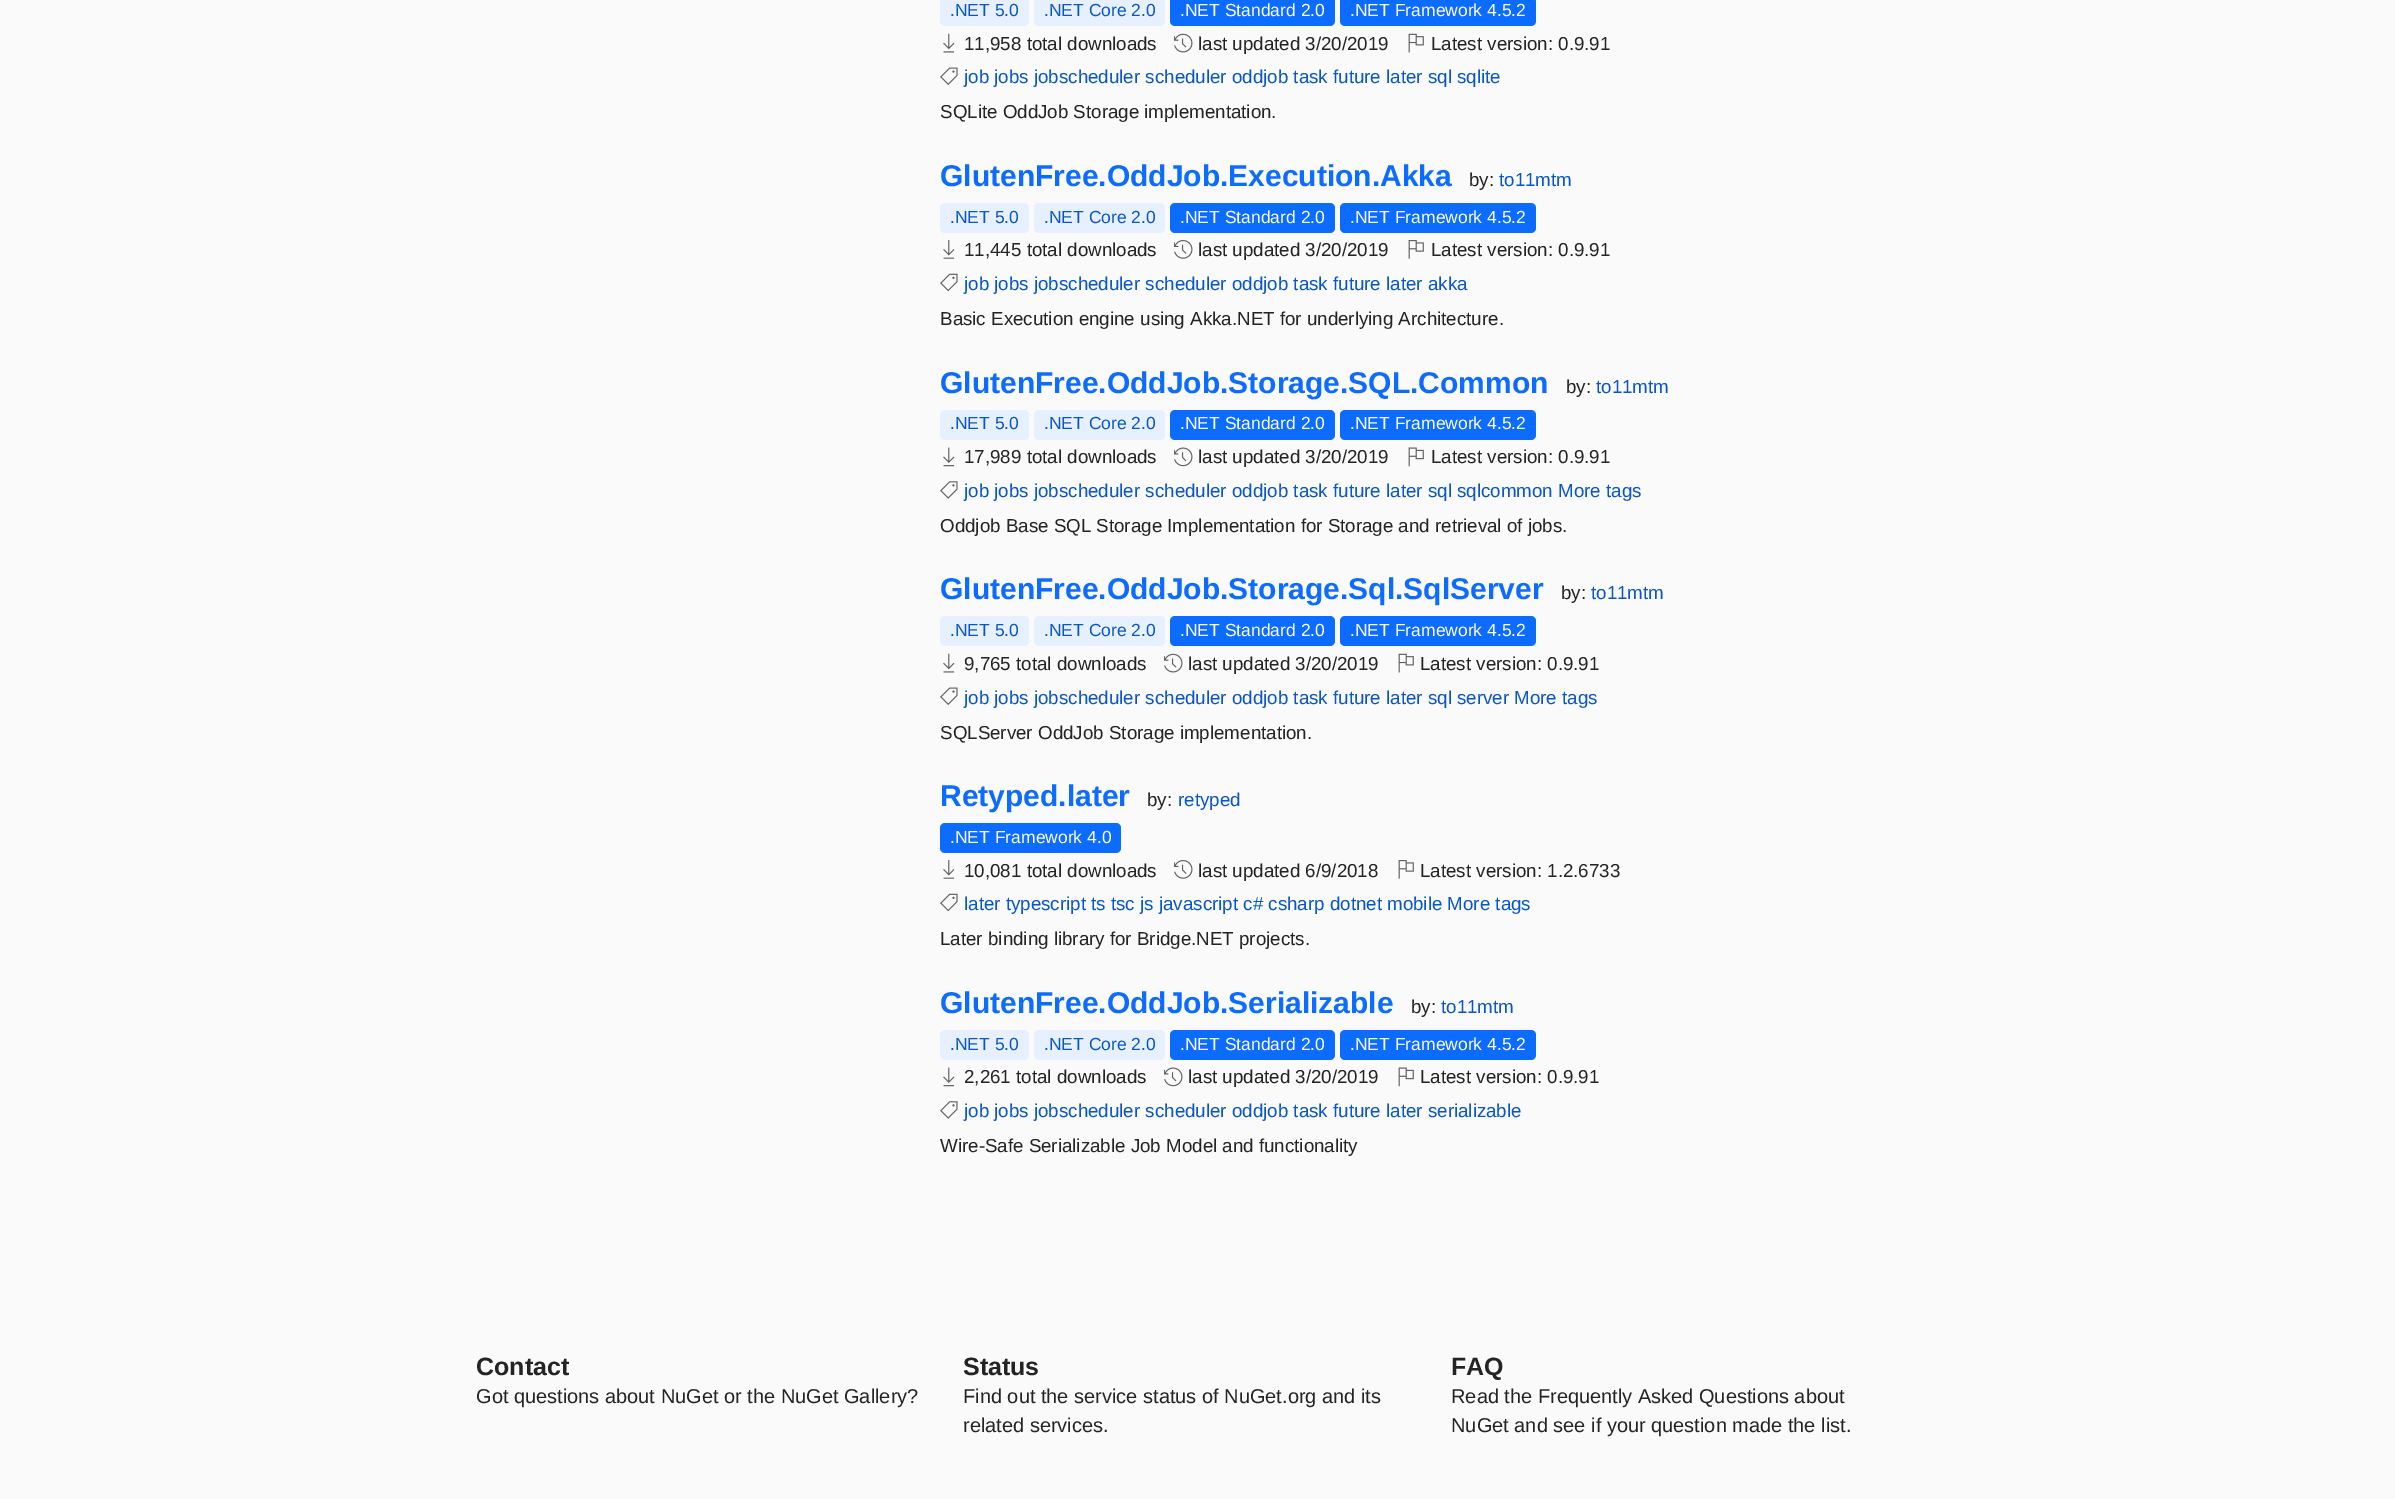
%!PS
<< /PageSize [2395 1499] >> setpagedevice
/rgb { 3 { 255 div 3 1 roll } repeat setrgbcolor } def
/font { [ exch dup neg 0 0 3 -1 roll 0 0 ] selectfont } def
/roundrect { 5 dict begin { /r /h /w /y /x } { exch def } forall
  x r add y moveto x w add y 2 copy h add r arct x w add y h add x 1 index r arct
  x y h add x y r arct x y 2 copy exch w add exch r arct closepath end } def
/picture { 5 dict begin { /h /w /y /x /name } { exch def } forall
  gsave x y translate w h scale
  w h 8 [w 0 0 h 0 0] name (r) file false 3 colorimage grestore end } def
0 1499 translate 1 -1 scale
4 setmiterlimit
250 250 250 rgb
0 0 2395 1499 rectfill
231 240 255 rgb
940 -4 89 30 5 roundrect fill
1034 -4 131 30 5 roundrect fill
11 108 255 rgb
1170 -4 165 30 5 roundrect fill
1340 -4 196 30 5 roundrect fill
(img/1.rgb) 943 33 12 20 picture
(img/2.rgb) 1174 33 19 20 picture
(img/3.rgb) 1408 33 16 20 picture
(img/4.rgb) 940 67 18 18 picture
231 240 255 rgb
940 203 89 30 5 roundrect fill
1034 203 131 30 5 roundrect fill
11 108 255 rgb
1170 203 165 30 5 roundrect fill
1340 203 196 30 5 roundrect fill
(img/5.rgb) 943 240 12 19 picture
(img/6.rgb) 1174 240 19 19 picture
(img/7.rgb) 1408 240 16 19 picture
(img/8.rgb) 940 273 18 19 picture
231 240 255 rgb
940 410 89 30 5 roundrect fill
1034 410 131 30 5 roundrect fill
11 108 255 rgb
1170 410 165 30 5 roundrect fill
1340 410 196 30 5 roundrect fill
(img/9.rgb) 943 447 12 20 picture
(img/10.rgb) 1174 447 19 20 picture
(img/11.rgb) 1408 447 16 20 picture
(img/12.rgb) 940 481 18 18 picture
231 240 255 rgb
940 616 89 30 5 roundrect fill
1034 616 131 30 5 roundrect fill
11 108 255 rgb
1170 616 165 30 5 roundrect fill
1340 616 196 30 5 roundrect fill
(img/1.rgb) 943 653 12 20 picture
(img/2.rgb) 1164 653 19 20 picture
(img/3.rgb) 1398 653 16 20 picture
(img/4.rgb) 940 687 18 18 picture
940 823 181 30 5 roundrect fill
(img/5.rgb) 943 860 12 19 picture
(img/6.rgb) 1174 860 19 19 picture
(img/7.rgb) 1398 860 16 19 picture
(img/8.rgb) 940 893 18 19 picture
231 240 255 rgb
940 1030 89 30 5 roundrect fill
1034 1030 131 30 5 roundrect fill
11 108 255 rgb
1170 1030 165 30 5 roundrect fill
1340 1030 196 30 5 roundrect fill
(img/9.rgb) 943 1067 12 20 picture
(img/10.rgb) 1164 1067 19 20 picture
(img/11.rgb) 1398 1067 16 20 picture
(img/12.rgb) 940 1101 18 18 picture
/LiberationSans-Regular 17.5 font
9 86 204 rgb
950 16 moveto (.NET 5.0) show
1044 16 moveto (.NET Core 2.0) show
255 255 255 rgb
1180 16 moveto (.NET Standard 2.0) show
1350 16 moveto (.NET Framework 4.5.2) show
/LiberationSans-Regular 18.75 font
36 36 36 rgb
[
  [(11,958 total downloads) 964 50]
  [(last updated 3/20/2019) 1198 50]
  [(Latest version: 0.9.91) 1431 50]
] { aload pop moveto show } forall
9 86 204 rgb
964 83 moveto (job jobs jobscheduler scheduler oddjob task future later sql sqlite) show
36 36 36 rgb
940 118 moveto (SQLite OddJob Storage implementation.) show
/LiberationSans-Bold 30 font
11 108 255 rgb
940 186 moveto (GlutenFree.OddJob.Execution.Akka) show
/LiberationSans-Regular 18.75 font
36 36 36 rgb
1469 186 moveto (by:) show
9 86 204 rgb
1499 186 moveto (to11mtm) show
/LiberationSans-Regular 17.5 font
950 223 moveto (.NET 5.0) show
1044 223 moveto (.NET Core 2.0) show
255 255 255 rgb
1180 223 moveto (.NET Standard 2.0) show
1350 223 moveto (.NET Framework 4.5.2) show
/LiberationSans-Regular 18.75 font
36 36 36 rgb
[
  [(11,445 total downloads) 964 256]
  [(last updated 3/20/2019) 1198 256]
  [(Latest version: 0.9.91) 1431 256]
] { aload pop moveto show } forall
9 86 204 rgb
964 290 moveto (job jobs jobscheduler scheduler oddjob task future later akka) show
36 36 36 rgb
940 325 moveto (Basic Execution engine using Akka.NET for underlying Architecture.) show
/LiberationSans-Bold 30 font
11 108 255 rgb
940 393 moveto (GlutenFree.OddJob.Storage.SQL.Common) show
/LiberationSans-Regular 18.75 font
36 36 36 rgb
1566 393 moveto (by:) show
9 86 204 rgb
1596 393 moveto (to11mtm) show
/LiberationSans-Regular 17.5 font
950 429 moveto (.NET 5.0) show
1044 429 moveto (.NET Core 2.0) show
255 255 255 rgb
1180 429 moveto (.NET Standard 2.0) show
1350 429 moveto (.NET Framework 4.5.2) show
/LiberationSans-Regular 18.75 font
36 36 36 rgb
[
  [(17,989 total downloads) 964 463]
  [(last updated 3/20/2019) 1198 463]
  [(Latest version: 0.9.91) 1431 463]
] { aload pop moveto show } forall
9 86 204 rgb
964 497 moveto (job jobs jobscheduler scheduler oddjob task future later sql sqlcommon More tags) show
36 36 36 rgb
940 532 moveto (Oddjob Base SQL Storage Implementation for Storage and retrieval of jobs.) show
/LiberationSans-Bold 30 font
11 108 255 rgb
940 599 moveto (GlutenFree.OddJob.Storage.Sql.SqlServer) show
/LiberationSans-Regular 18.75 font
36 36 36 rgb
1561 599 moveto (by:) show
9 86 204 rgb
1591 599 moveto (to11mtm) show
/LiberationSans-Regular 17.5 font
950 636 moveto (.NET 5.0) show
1044 636 moveto (.NET Core 2.0) show
255 255 255 rgb
1180 636 moveto (.NET Standard 2.0) show
1350 636 moveto (.NET Framework 4.5.2) show
/LiberationSans-Regular 18.75 font
36 36 36 rgb
[
  [(9,765 total downloads) 964 670]
  [(last updated 3/20/2019) 1188 670]
  [(Latest version: 0.9.91) 1420 670]
] { aload pop moveto show } forall
9 86 204 rgb
964 704 moveto (job jobs jobscheduler scheduler oddjob task future later sql server More tags) show
36 36 36 rgb
940 739 moveto (SQLServer OddJob Storage implementation.) show
/LiberationSans-Bold 30 font
11 108 255 rgb
940 806 moveto (Retyped.later) show
/LiberationSans-Regular 18.75 font
36 36 36 rgb
1147 806 moveto (by:) show
9 86 204 rgb
1178 806 moveto (retyped) show
/LiberationSans-Regular 17.5 font
255 255 255 rgb
950 843 moveto (.NET Framework 4.0) show
/LiberationSans-Regular 18.75 font
36 36 36 rgb
[
  [(10,081 total downloads) 964 877]
  [(last updated 6/9/2018) 1198 877]
  [(Latest version: 1.2.6733) 1420 877]
] { aload pop moveto show } forall
9 86 204 rgb
964 910 moveto (later typescript ts tsc js javascript c# csharp dotnet mobile More tags) show
36 36 36 rgb
940 945 moveto (Later binding library for Bridge.NET projects.) show
/LiberationSans-Bold 30 font
11 108 255 rgb
940 1013 moveto (GlutenFree.OddJob.Serializable) show
/LiberationSans-Regular 18.75 font
36 36 36 rgb
1411 1013 moveto (by:) show
9 86 204 rgb
1441 1013 moveto (to11mtm) show
/LiberationSans-Regular 17.5 font
950 1050 moveto (.NET 5.0) show
1044 1050 moveto (.NET Core 2.0) show
255 255 255 rgb
1180 1050 moveto (.NET Standard 2.0) show
1350 1050 moveto (.NET Framework 4.5.2) show
/LiberationSans-Regular 18.75 font
36 36 36 rgb
[
  [(2,261 total downloads) 964 1083]
  [(last updated 3/20/2019) 1188 1083]
  [(Latest version: 0.9.91) 1420 1083]
] { aload pop moveto show } forall
9 86 204 rgb
964 1117 moveto (job jobs jobscheduler scheduler oddjob task future later serializable) show
36 36 36 rgb
940 1152 moveto (Wire-Safe Serializable Job Model and functionality) show
/LiberationSans-Bold 25 font
476 1375 moveto (Contact) show
/LiberationSans-Regular 20 font
476 1403 moveto (Got questions about NuGet or the NuGet Gallery?) show
/LiberationSans-Bold 25 font
963 1375 moveto (Status) show
/LiberationSans-Regular 20 font
963 1403 moveto (Find out the service status of NuGet.org and its) show
963 1432 moveto (related services.) show
/LiberationSans-Bold 25 font
1451 1375 moveto (FAQ) show
/LiberationSans-Regular 20 font
1451 1403 moveto (Read the Frequently Asked Questions about) show
1451 1432 moveto (NuGet and see if your question made the list.) show
showpage
